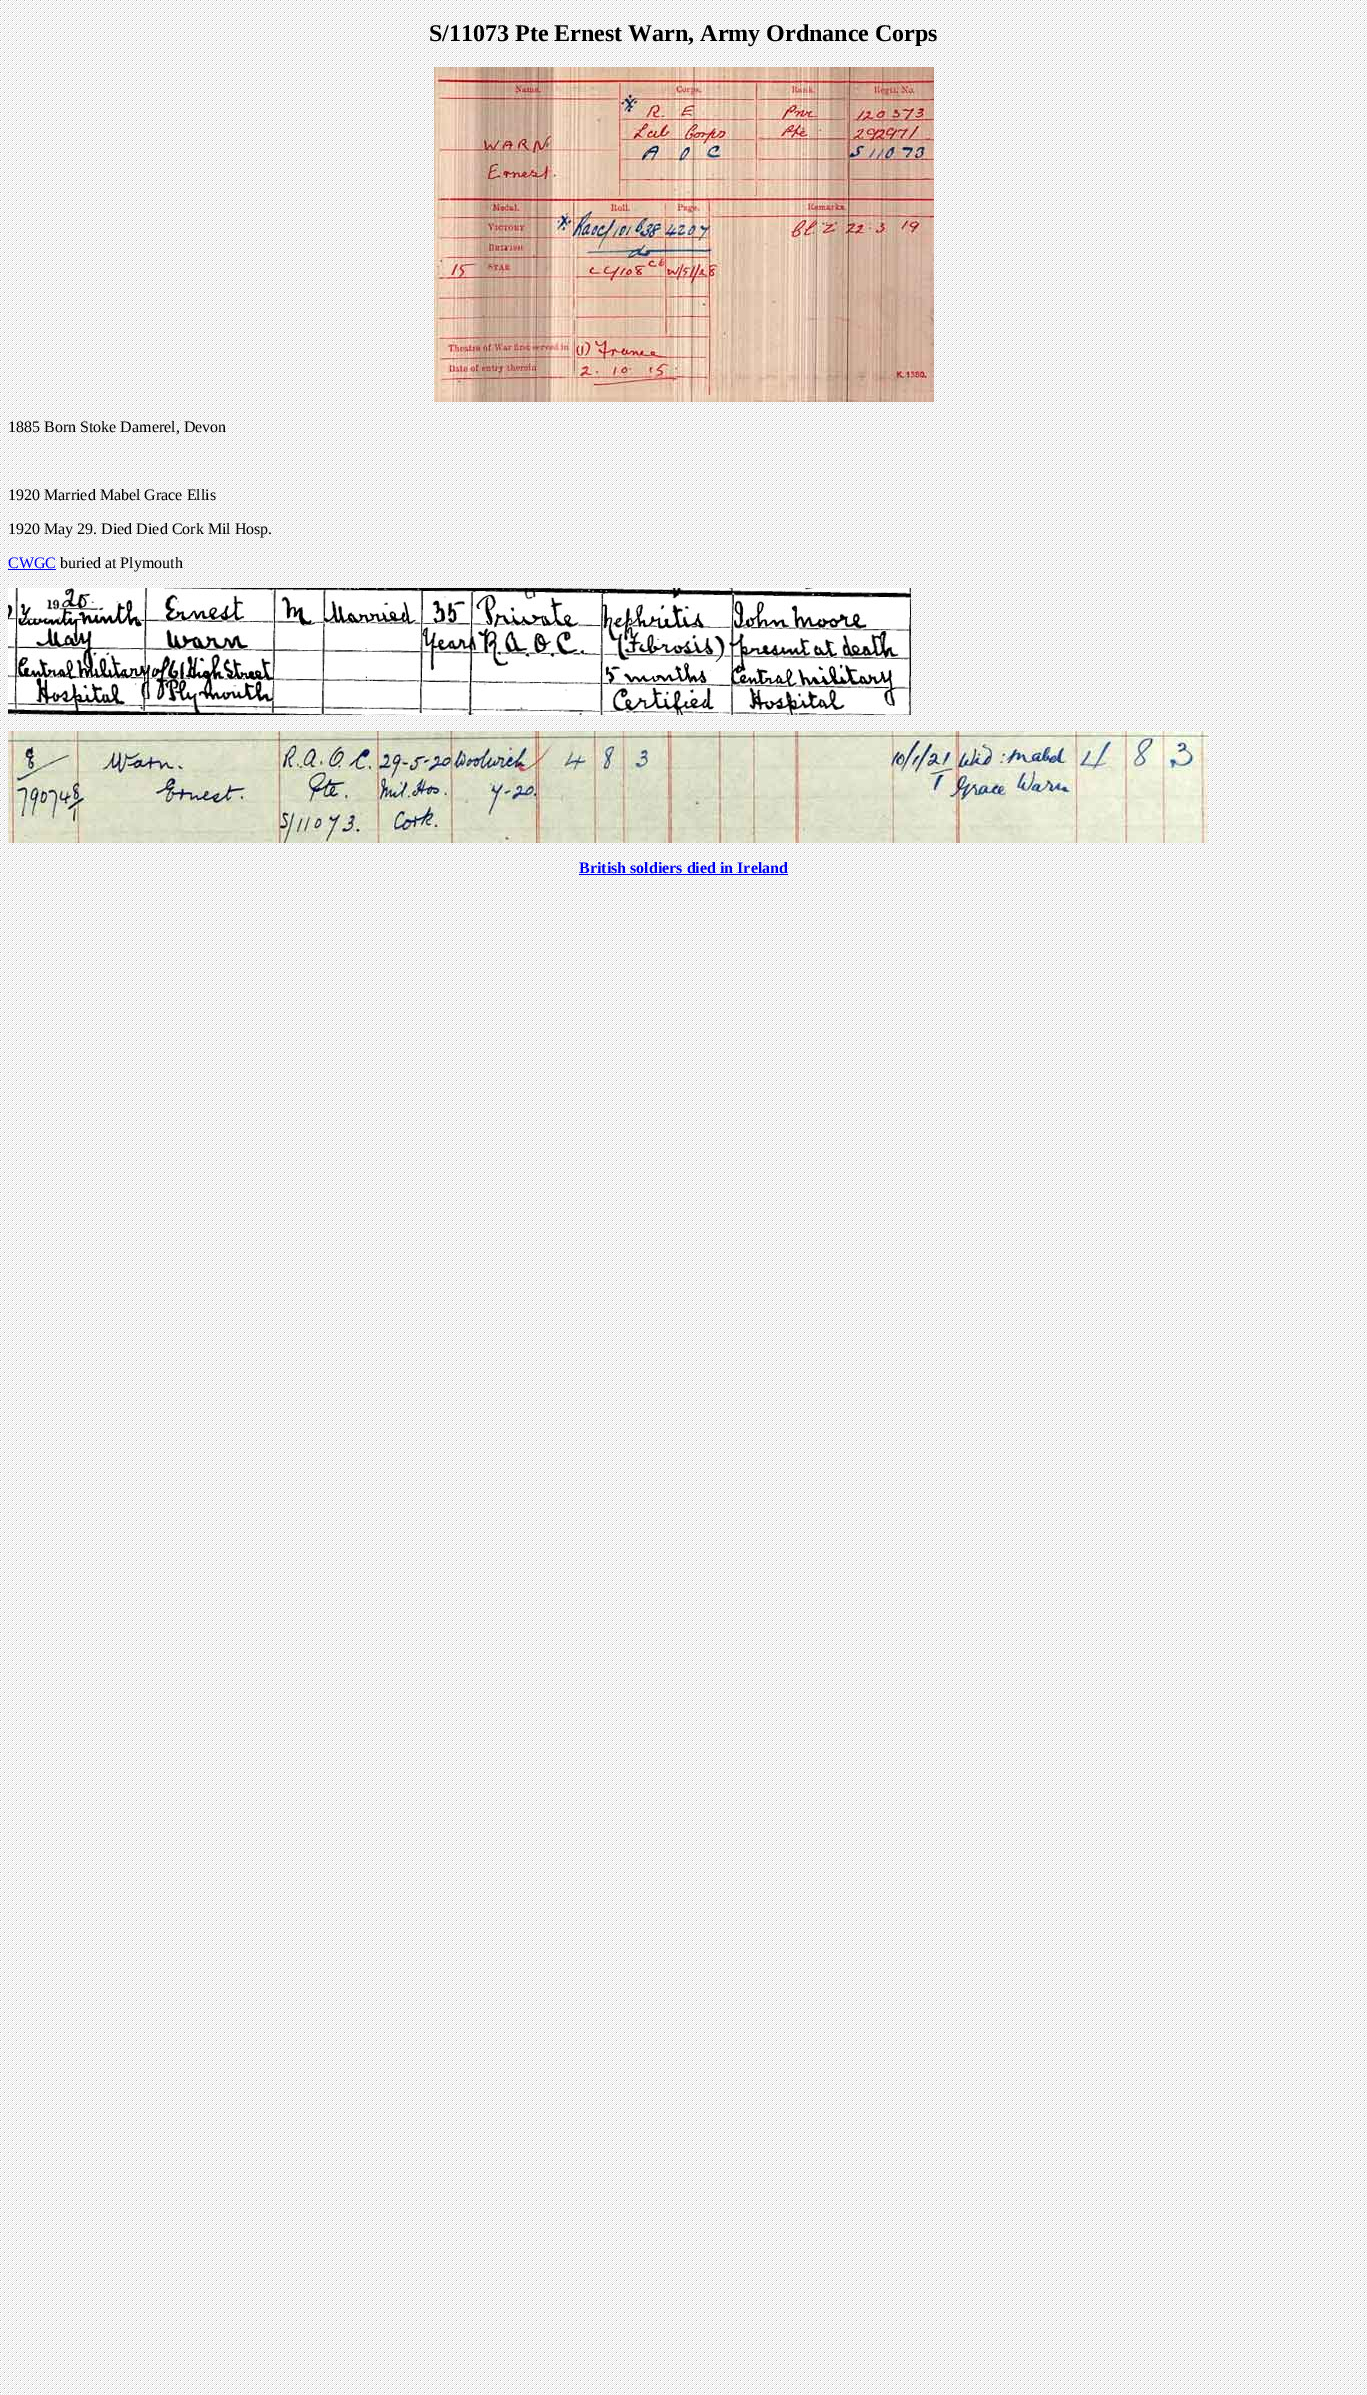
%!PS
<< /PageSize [1367 2395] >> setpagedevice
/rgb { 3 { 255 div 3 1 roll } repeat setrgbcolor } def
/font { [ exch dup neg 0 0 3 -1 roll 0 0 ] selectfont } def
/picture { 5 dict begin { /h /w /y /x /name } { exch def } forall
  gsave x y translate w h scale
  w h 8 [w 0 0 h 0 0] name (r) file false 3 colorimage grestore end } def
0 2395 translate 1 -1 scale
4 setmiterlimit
255 255 255 rgb
0 0 1367 2395 rectfill
(img/1.rgb) 0 0 1367 2395 picture
(img/2.rgb) 434 67 500 335 picture
0 0 238 rgb
8 569 48 1 rectfill
(img/3.rgb) 8 588 903 127 picture
(img/4.rgb) 8 731 1200 112 picture
579 874 209 1 rectfill
/LiberationSerif-Bold 24 font
0 0 0 rgb
429 41 moveto (S/11073 Pte Ernest Warn, Army Ordnance Corps) show
/LiberationSerif-Regular 16 font
[
  [(1885 Born Stoke Damerel, Devon) 8 432]
  [(1920 Married Mabel Grace Ellis) 8 500]
  [(1920 May 29. Died Died Cork Mil Hosp.) 8 534]
] { aload pop moveto show } forall
0 0 238 rgb
8 568 moveto (CWGC) show
0 0 0 rgb
60 568 moveto (buried at Plymouth) show
/LiberationSerif-Bold 16 font
0 0 238 rgb
579 873 moveto (British soldiers died in Ireland) show
showpage
